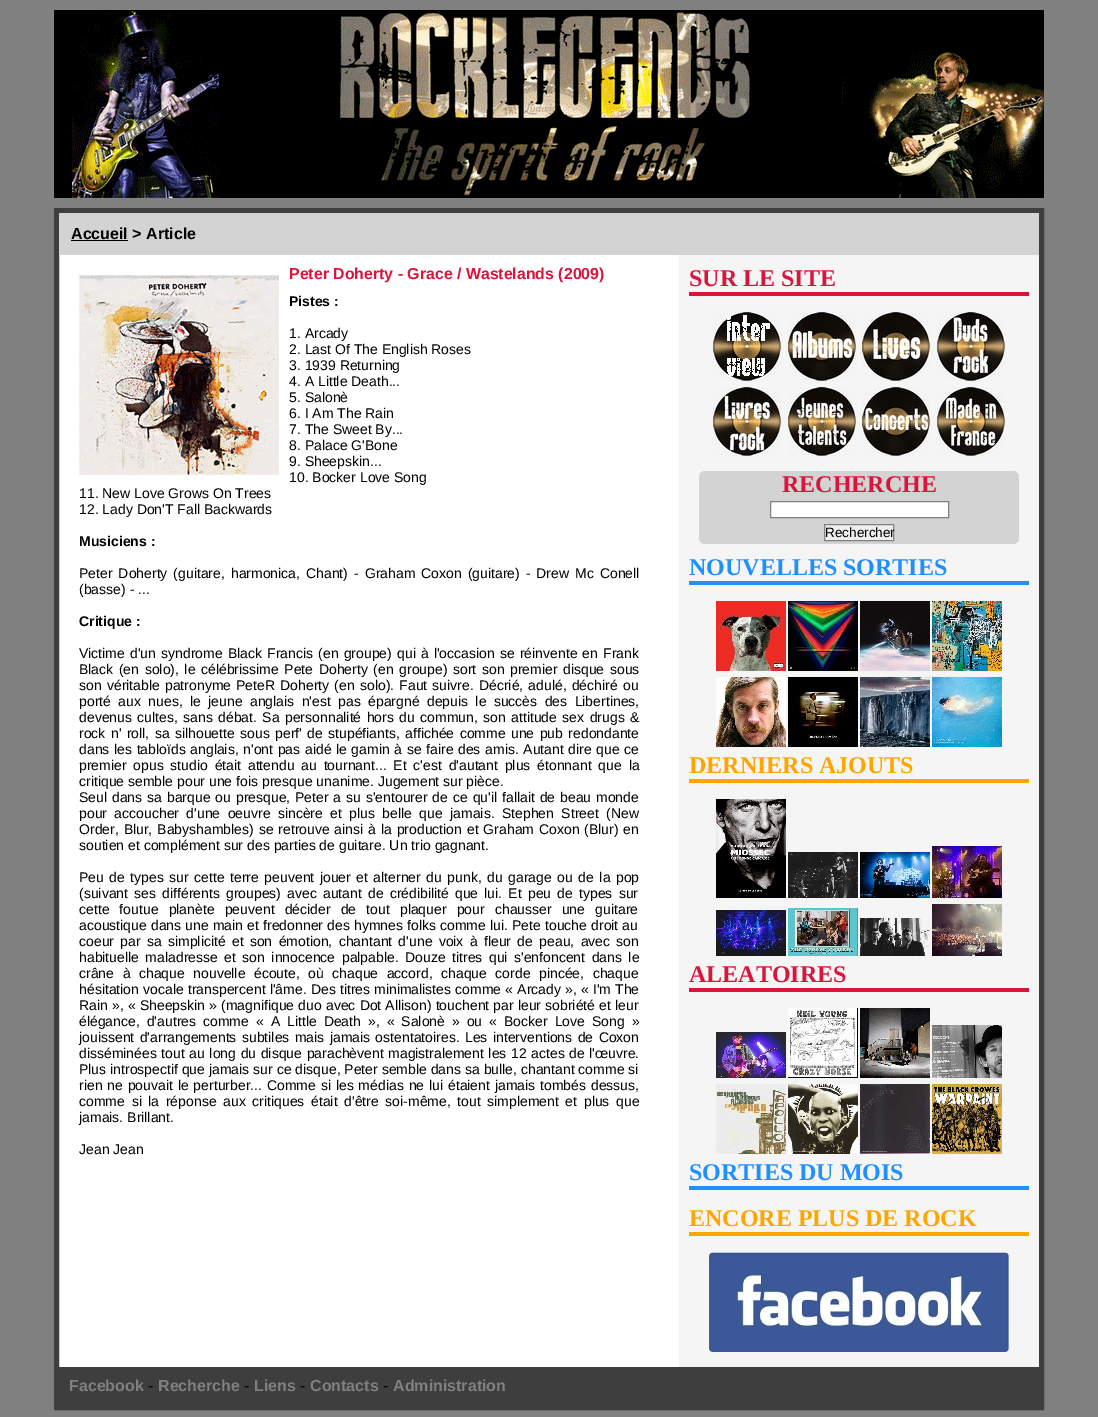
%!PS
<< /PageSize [1098 1417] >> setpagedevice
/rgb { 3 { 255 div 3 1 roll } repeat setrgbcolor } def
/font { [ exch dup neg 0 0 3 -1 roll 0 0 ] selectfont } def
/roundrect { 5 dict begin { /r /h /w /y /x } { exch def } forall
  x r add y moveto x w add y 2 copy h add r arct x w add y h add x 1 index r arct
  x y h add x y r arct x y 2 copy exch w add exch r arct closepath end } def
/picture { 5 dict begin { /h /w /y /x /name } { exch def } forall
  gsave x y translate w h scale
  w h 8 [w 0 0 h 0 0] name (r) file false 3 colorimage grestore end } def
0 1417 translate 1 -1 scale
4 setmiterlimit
128 128 128 rgb
0 0 1098 1417 rectfill
(img/1.rgb) 54 10 990 188 picture
(img/2.rgb) 59 255 980 1112 picture
62 62 62 rgb
5 setlinewidth
56.5 210.5 985 1197 rectstroke
211 211 211 rgb
59 213 980 42 rectfill
0 0 0 rgb
71 240 57 1 rectfill
(img/3.rgb) 79 275 200 200 picture
220 20 60 rgb
689 292 340 4 rectfill
(img/4.rgb) 713 312 68 69 picture
(img/5.rgb) 788 312 68 69 picture
(img/6.rgb) 862 312 68 69 picture
(img/7.rgb) 937 312 68 69 picture
(img/8.rgb) 713 387 68 69 picture
(img/9.rgb) 788 387 68 69 picture
(img/10.rgb) 862 387 68 69 picture
(img/11.rgb) 937 387 68 69 picture
211 211 211 rgb
699 471 320 73 6 roundrect fill
255 255 255 rgb
770.5 501.5 moveto 948.5 501.5 lineto 948.5 517.5 lineto 770.5 517.5 lineto closepath gsave fill grestore
128 128 128 rgb
1 setlinewidth
stroke
239 239 239 rgb
824.5 524.5 moveto 893.5 524.5 lineto 893.5 540.5 lineto 824.5 540.5 lineto closepath gsave fill grestore
128 128 128 rgb
stroke
30 144 255 rgb
689 581 340 4 rectfill
(img/12.rgb) 716 601 70 70 picture
(img/13.rgb) 788 601 70 70 picture
(img/14.rgb) 860 601 70 70 picture
(img/15.rgb) 932 601 70 70 picture
(img/16.rgb) 716 677 70 70 picture
(img/17.rgb) 788 677 70 70 picture
(img/18.rgb) 860 677 70 70 picture
(img/19.rgb) 932 677 70 70 picture
255 165 0 rgb
689 779 340 4 rectfill
(img/20.rgb) 716 799 70 99 picture
(img/21.rgb) 788 852 70 46 picture
(img/22.rgb) 860 852 70 46 picture
(img/23.rgb) 932 846 70 52 picture
(img/24.rgb) 716 910 70 46 picture
(img/25.rgb) 788 908 70 48 picture
(img/26.rgb) 860 918 70 38 picture
(img/27.rgb) 932 904 70 52 picture
220 20 60 rgb
689 988 340 4 rectfill
(img/28.rgb) 716 1032 70 46 picture
(img/29.rgb) 788 1008 70 70 picture
(img/30.rgb) 860 1008 70 70 picture
(img/31.rgb) 932 1025 70 53 picture
(img/32.rgb) 716 1084 70 70 picture
(img/33.rgb) 788 1084 70 70 picture
(img/34.rgb) 860 1084 70 70 picture
(img/35.rgb) 932 1084 70 70 picture
30 144 255 rgb
689 1186 340 4 rectfill
255 165 0 rgb
689 1232 340 4 rectfill
(img/36.rgb) 709 1252 300 100 picture
62 62 62 rgb
59 1367 980 38 rectfill
/LiberationSans-Bold 16 font
0 0 0 rgb
71 239 moveto (Accueil > Article) show
/LiberationSans-Bold 15.9 font
220 20 60 rgb
289 279 moveto (Peter Doherty - Grace / Wastelands \(2009\)) show
/LiberationSans-Bold 14 font
0 0 0 rgb
289 306 moveto (Pistes :) show
/LiberationSans-Regular 14 font
[
  [(1. Arcady) 289 338]
  [(2. Last Of The English Roses) 289 354]
  [(3. 1939 Returning) 289 370]
  [(4. A Little Death...) 289 386]
  [(5. Salonè) 289 402]
  [(6. I Am The Rain) 289 418]
  [(7. The Sweet By...) 289 434]
  [(8. Palace G'Bone) 289 450]
  [(9. Sheepskin...) 289 466]
  [(10. Bocker Love Song) 289 482]
  [(11. New Love Grows On Trees) 79 498]
  [(12. Lady Don'T Fall Backwards) 79 514]
] { aload pop moveto show } forall
/LiberationSans-Bold 14 font
79 546 moveto (Musiciens :) show
/LiberationSans-Regular 14 font
79 578 moveto 2.1 0 32 (Peter Doherty \(guitare, harmonica, Chant\) - Graham Coxon \(guitare\) - Drew Mc Conell) widthshow
79 594 moveto (\(basse\) - ...) show
/LiberationSans-Bold 14 font
79 626 moveto (Critique :) show
/LiberationSans-Regular 14 font
79 658 moveto 1.25 0 32 (Victime d'un syndrome Black Francis \(en groupe\) qui à l'occasion se réinvente en Frank) widthshow
79 674 moveto 1.7 0 32 (Black \(en solo\), le célébrissime Pete Doherty \(en groupe\) sort son premier disque sous) widthshow
79 690 moveto 1.3 0 32 (son véritable patronyme PeteR Doherty \(en solo\). Faut suivre. Décrié, adulé, déchiré ou) widthshow
79 706 moveto 3.5 0 32 (porté aux nues, le jeune anglais n'est pas épargné depuis le succès des Libertines,) widthshow
79 722 moveto 1.5 0 32 (devenus cultes, sans débat. Sa personnalité hors du commun, son attitude sex drugs &) widthshow
79 738 moveto 1.5 0 32 (rock n' roll, sa silhouette sous perf' de stupéfiants, affichée comme une pub redondante) widthshow
79 754 moveto 0.75 0 32 (dans les tabloïds anglais, n'ont pas aidé le gamin à se faire des amis. Autant dire que ce) widthshow
79 770 moveto 2.9 0 32 (premier opus studio était attendu au tournant... Et c'est d'autant plus étonnant que la) widthshow
79 786 moveto (critique semble pour une fois presque unanime. Jugement sur pièce.) show
79 802 moveto 1 0 32 (Seul dans sa barque ou presque, Peter a su s'entourer de ce qu'il fallait de beau monde) widthshow
79 818 moveto 3.5 0 32 (pour accoucher d'une oeuvre sincère et plus belle que jamais. Stephen Street \(New) widthshow
79 834 moveto 1 0 32 (Order, Blur, Babyshambles\) se retrouve ainsi à la production et Graham Coxon \(Blur\) en) widthshow
79 850 moveto (soutien et complément sur des parties de guitare. Un trio gagnant.) show
79 882 moveto 1.6 0 32 (Peu de types sur cette terre peuvent jouer et alterner du punk, du garage ou de la pop) widthshow
79 898 moveto 2.25 0 32 (\(suivant ses différents groupes\) avec autant de crédibilité que lui. Et peu de types sur) widthshow
79 914 moveto 6.25 0 32 (cette foutue planète peuvent décider de tout plaquer pour chausser une guitare) widthshow
79 930 moveto 0.25 0 32 (acoustique dans une main et fredonner des hymnes folks comme lui. Pete touche droit au) widthshow
79 946 moveto 2.4 0 32 (coeur par sa simplicité et son émotion, chantant d'une voix à fleur de peau, avec son) widthshow
79 962 moveto 2.6 0 32 (habituelle maladresse et son innocence palpable. Douze titres qui s'enfoncent dans le) widthshow
79 978 moveto 4.6 0 32 (crâne à chaque nouvelle écoute, où chaque accord, chaque corde pincée, chaque) widthshow
79 994 moveto 0.25 0 32 (hésitation vocale transpercent l'âme. Des titres minimalistes comme « Arcady », « I'm The) widthshow
79 1010 moveto 0.25 0 32 (Rain », « Sheepskin » \(magnifique duo avec Dot Allison\) touchent par leur sobriété et leur) widthshow
79 1026 moveto 3.1 0 32 (élégance, d'autres comme « A Little Death », « Salonè » ou « Bocker Love Song ») widthshow
79 1042 moveto 1.5 0 32 (jouissent d'arrangements subtiles mais jamais ostentatoires. Les interventions de Coxon) widthshow
79 1058 moveto 0.7 0 32 (disséminées tout au long du disque parachèvent magistralement les 12 actes de l'œuvre.) widthshow
79 1074 moveto (Plus introspectif que jamais sur ce disque, Peter semble dans sa bulle, chantant comme si) show
79 1090 moveto 1 0 32 (rien ne pouvait le perturber... Comme si les médias ne lui étaient jamais tombés dessus,) widthshow
79 1106 moveto 2.75 0 32 (comme si la réponse aux critiques était d'être soi-même, tout simplement et plus que) widthshow
79 1122 moveto (jamais. Brillant.) show
79 1154 moveto (Jean Jean) show
/LiberationSerif-Bold 24 font
220 20 60 rgb
689 286 moveto (SUR LE SITE) show
782 492 moveto (RECHERCHE) show
/LiberationSans-Regular 13.5 font
0 0 0 rgb
825 537 moveto (Rechercher) show
/LiberationSerif-Bold 24 font
30 144 255 rgb
689 575 moveto (NOUVELLES SORTIES) show
255 165 0 rgb
689 773 moveto (DERNIERS AJOUTS) show
220 20 60 rgb
689 982 moveto (ALEATOIRES) show
30 144 255 rgb
689 1180 moveto (SORTIES DU MOIS) show
255 165 0 rgb
689 1226 moveto (ENCORE PLUS DE ROCK) show
/LiberationSans-Bold 16 font
128 128 128 rgb
69 1391 moveto (Facebook) show
/LiberationSans-Regular 16 font
0 0 0 rgb
148 1391 moveto (-) show
/LiberationSans-Bold 16 font
128 128 128 rgb
158 1391 moveto (Recherche) show
/LiberationSans-Regular 16 font
0 0 0 rgb
244 1391 moveto (-) show
/LiberationSans-Bold 16 font
128 128 128 rgb
254 1391 moveto (Liens) show
/LiberationSans-Regular 16 font
0 0 0 rgb
300 1391 moveto (-) show
/LiberationSans-Bold 16 font
128 128 128 rgb
310 1391 moveto (Contacts) show
/LiberationSans-Regular 16 font
0 0 0 rgb
383 1391 moveto (-) show
/LiberationSans-Bold 16 font
128 128 128 rgb
393 1391 moveto (Administration) show
showpage
